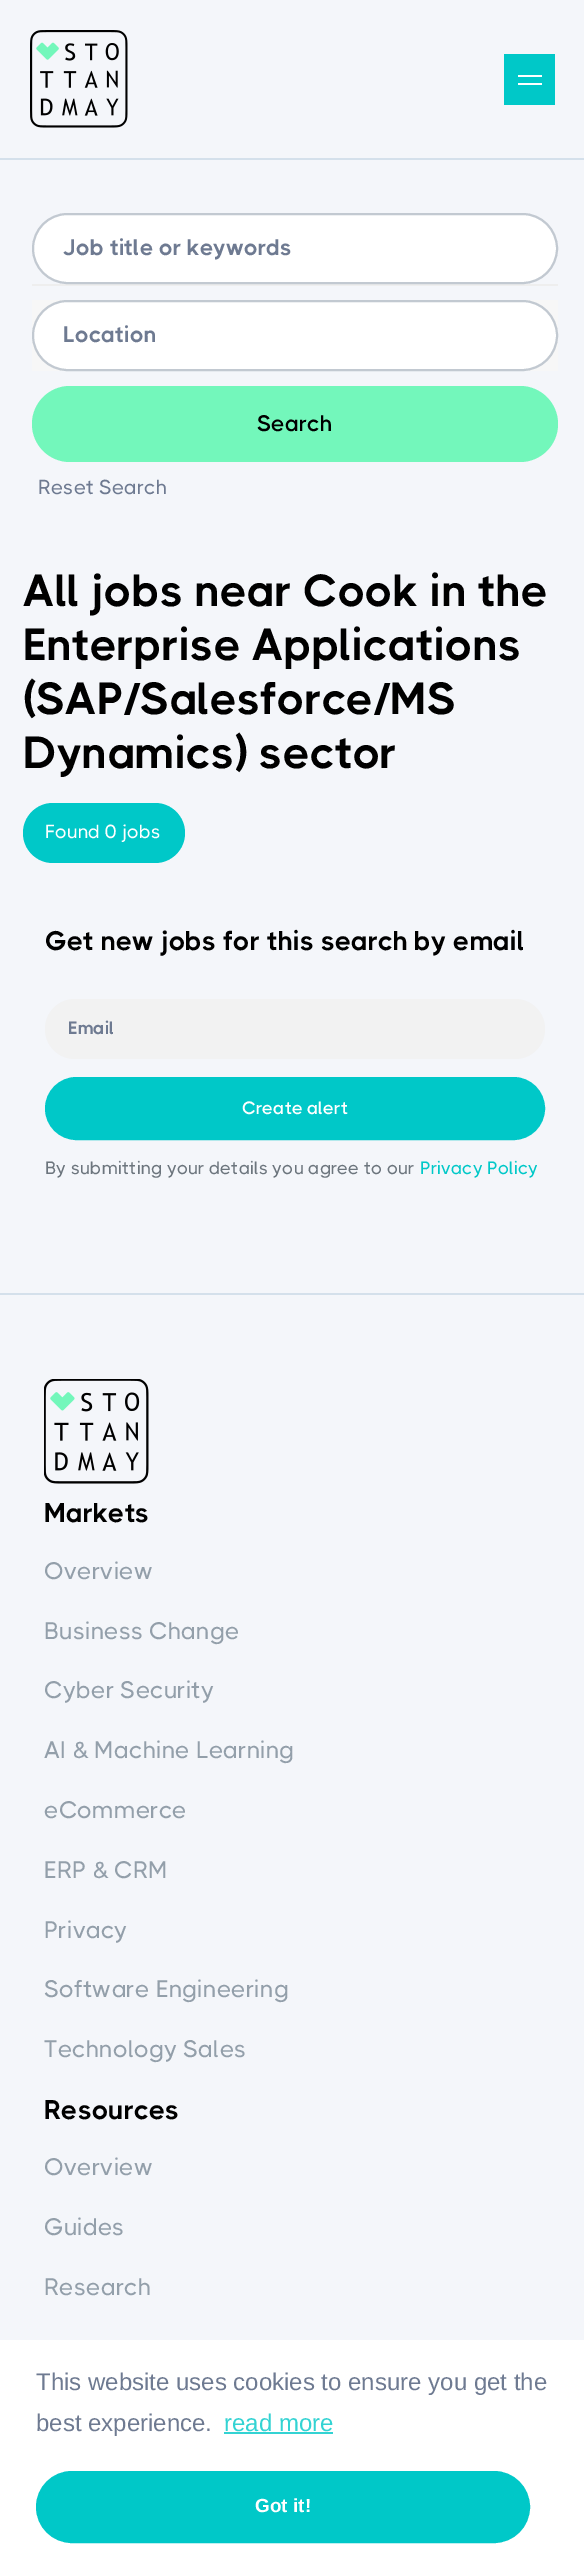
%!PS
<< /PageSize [584 2575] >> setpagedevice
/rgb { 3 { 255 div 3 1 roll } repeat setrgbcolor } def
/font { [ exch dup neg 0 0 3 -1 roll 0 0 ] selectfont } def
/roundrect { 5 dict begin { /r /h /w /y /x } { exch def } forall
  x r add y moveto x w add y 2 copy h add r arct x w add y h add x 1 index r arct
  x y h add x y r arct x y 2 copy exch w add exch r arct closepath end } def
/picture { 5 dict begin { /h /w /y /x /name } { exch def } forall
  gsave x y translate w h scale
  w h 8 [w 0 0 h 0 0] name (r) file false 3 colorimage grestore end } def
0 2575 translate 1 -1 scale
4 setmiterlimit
244 246 250 rgb
0 0 584 2575 rectfill
212 224 235 rgb
0 158 584 2 rectfill
(img/1.rgb) 30 30 98 98 picture
[
  [504 54 51 51 0 200 200]
  [518 75 24 2 255 255 255]
  [518 83 24 2 255 255 255]
  [32 284 526 2 238 238 238]
] { aload pop rgb rectfill } forall
255 255 255 rgb
33 214 524 69 34.5 roundrect gsave fill grestore
194 201 209 rgb
2 setlinewidth
stroke
247 247 247 rgb
32 300 526 71 rectfill
255 255 255 rgb
33 301 524 69 34.5 roundrect gsave fill grestore
194 201 209 rgb
stroke
115 247 187 rgb
32 386 526 76 38 roundrect fill
0 200 200 rgb
23 803 162 60 30 roundrect fill
242 242 242 rgb
45 999 500 60 30 roundrect fill
0 200 200 rgb
46.5 1078.5 497 60 30 roundrect gsave fill grestore
3 setlinewidth
stroke
212 224 235 rgb
0 1293 584 2 rectfill
(img/2.rgb) 44 1379 105 105 picture
255 255 255 rgb
0 2340 584 235 rectfill
51 211 211 rgb
224 2432 109 2 rectfill
0 200 200 rgb
37.5 2472.5 491 69 34.5 roundrect gsave fill grestore
stroke
/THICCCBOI-Bold 22.5 font
110 122 145 rgb
63 255 moveto (Job title or keywords) show
63 342 moveto (Location) show
/THICCCBOI-SemiBold 22.5 font
0 0 0 rgb
257 431 moveto (Search) show
/THICCCBOI-Medium 20.25 font
110 122 145 rgb
38 494 moveto (Reset Search) show
/THICCCBOI-Bold 45 font
0 0 0 rgb
[
  [(All jobs near Cook in the) 23 606]
  [(Enterprise Applications) 23 660]
  [(\(SAP/Salesforce/MS) 23 714]
  [(Dynamics\) sector) 23 768]
] { aload pop moveto show } forall
/THICCCBOI-Medium 19 font
255 255 255 rgb
45 838 moveto (Found 0 jobs) show
/THICCCBOI-Bold 27 font
0 0 0 rgb
45 950 moveto (Get new jobs for this search by email) show
/THICCCBOI-Bold 18 font
110 122 145 rgb
68 1034 moveto (Email) show
/THICCCBOI-SemiBold 18 font
255 255 255 rgb
242 1114 moveto (Create alert) show
/THICCCBOI-Medium 18 font
108 117 125 rgb
45 1174 moveto (By submitting your details you agree to our) show
0 200 200 rgb
420 1174 moveto (Privacy Policy) show
/THICCCBOI-Bold 27 font
0 0 0 rgb
44 1522 moveto (Markets) show
/THICCCBOI-Medium 24 font
147 159 170 rgb
[
  [(Overview) 44 1579]
  [(Business Change) 44 1639]
  [(Cyber Security) 44 1698]
  [(AI & Machine Learning) 44 1758]
  [(eCommerce) 44 1818]
  [(ERP & CRM) 44 1878]
  [(Privacy) 44 1938]
  [(Software Engineering) 44 1997]
  [(Technology Sales) 44 2057]
] { aload pop moveto show } forall
/THICCCBOI-Bold 27 font
0 0 0 rgb
44 2119 moveto (Resources) show
/THICCCBOI-Medium 24 font
147 159 170 rgb
[
  [(Overview) 44 2175]
  [(Guides) 44 2235]
  [(Research) 44 2295]
] { aload pop moveto show } forall
/LiberationSans-Regular 24 font
110 122 145 rgb
36 2390 moveto (This website uses cookies to ensure you get the) show
36 2431 moveto (best experience.) show
51 211 211 rgb
224 2431 moveto (read more) show
/LiberationSans-Bold 19 font
255 255 255 rgb
255 2512 moveto (Got it!) show
showpage
